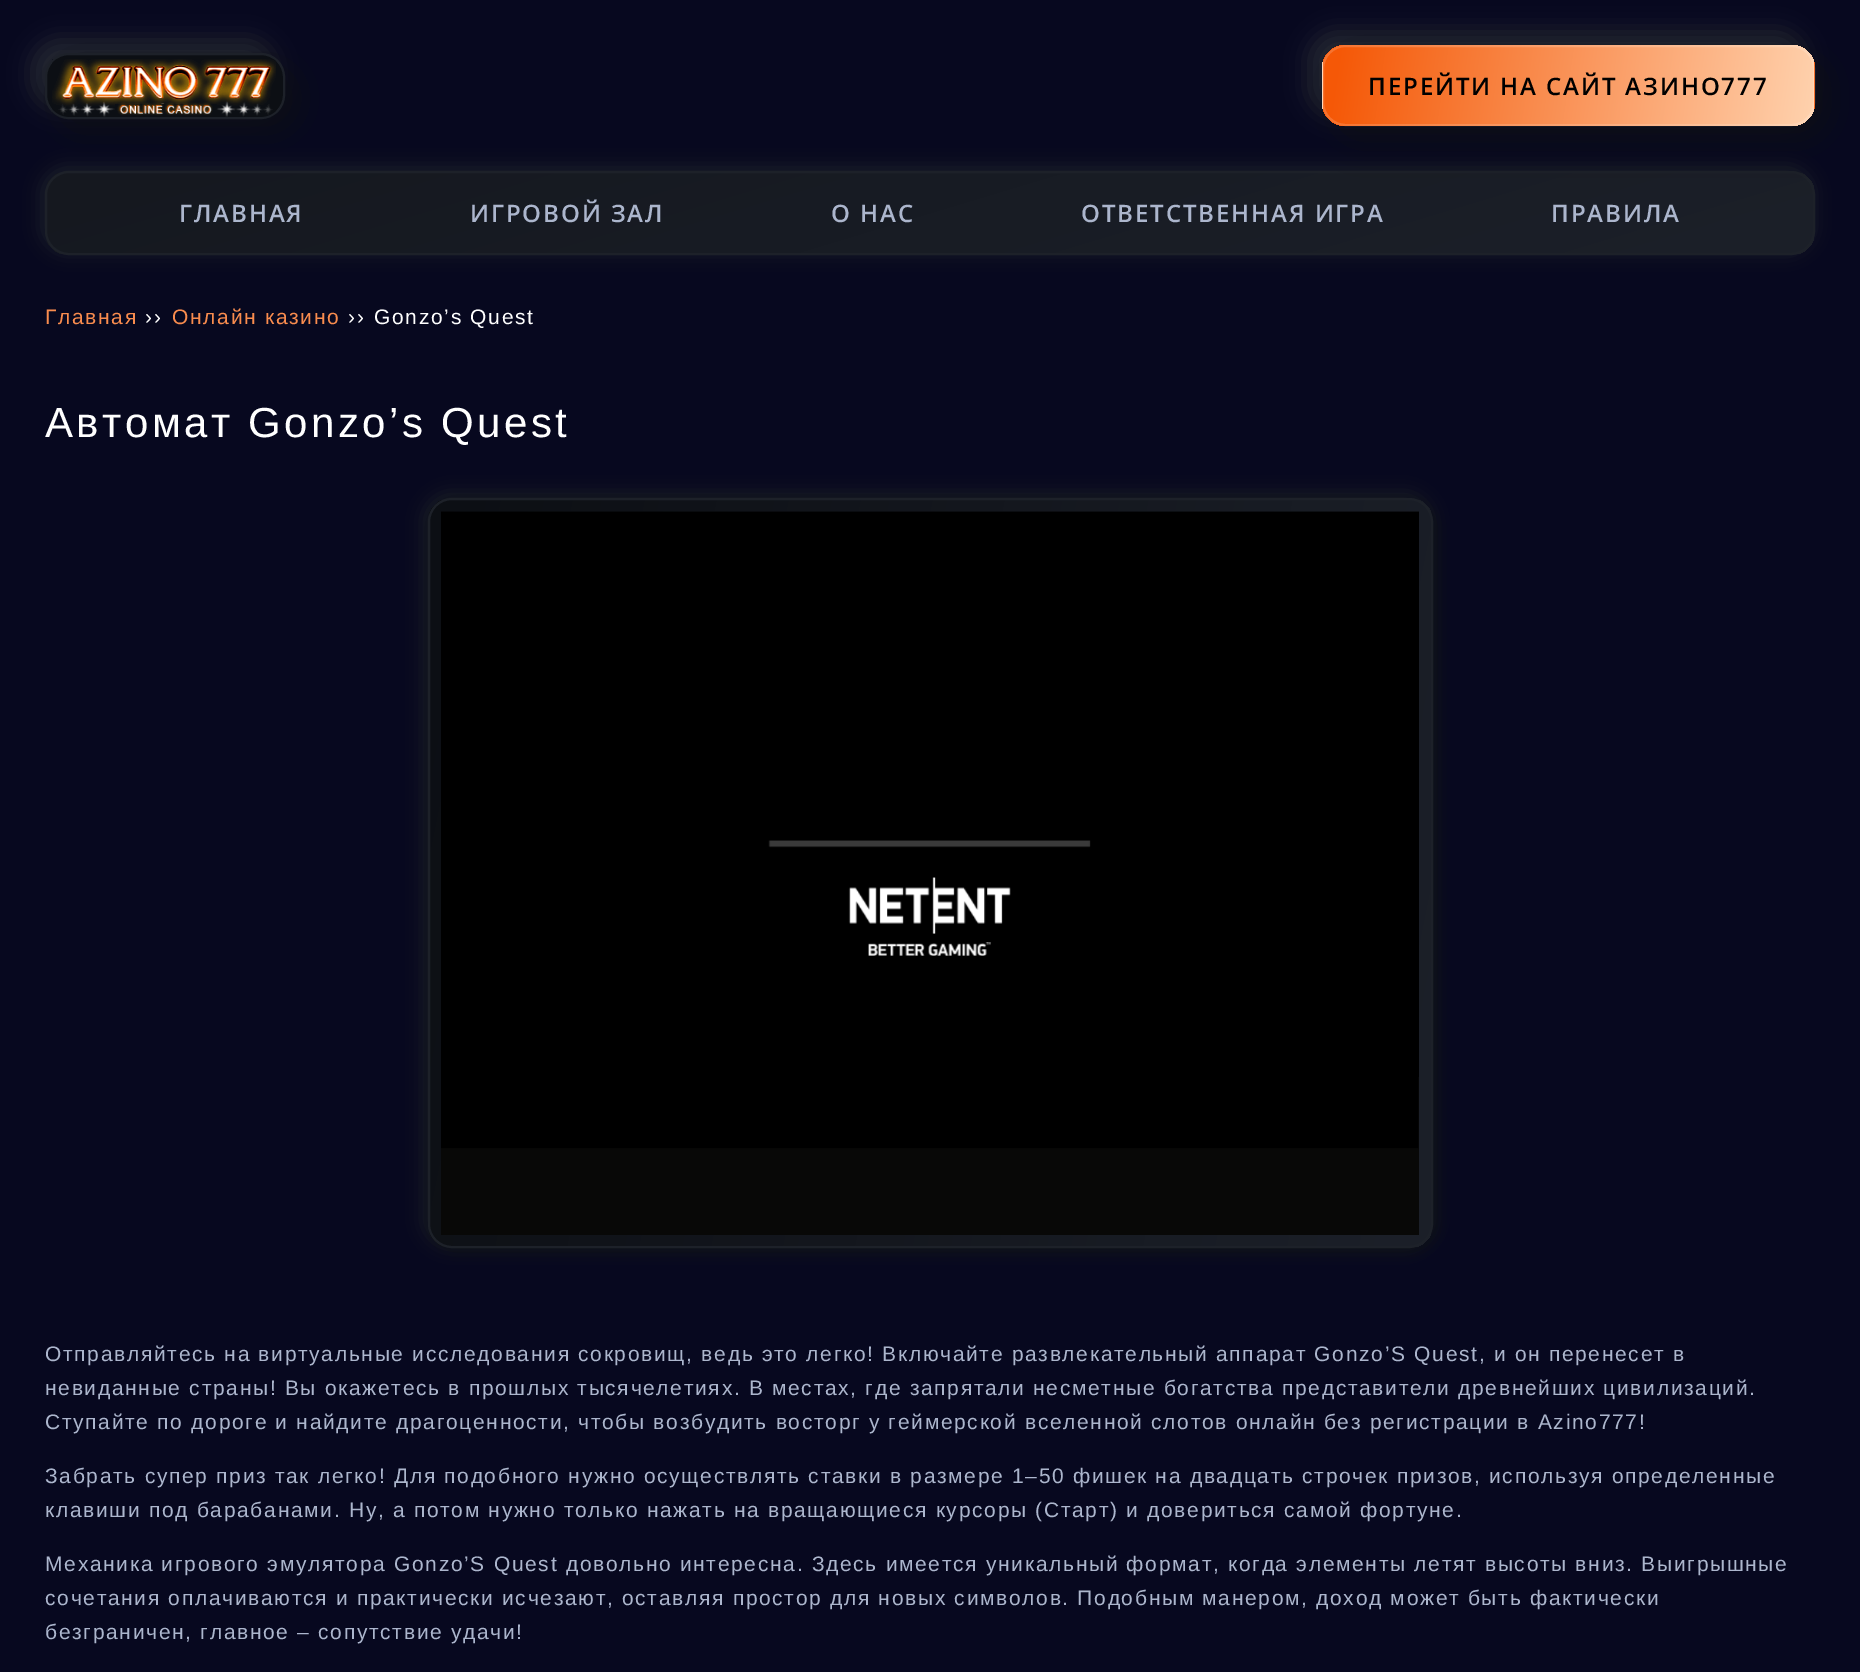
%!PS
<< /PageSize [1860 1672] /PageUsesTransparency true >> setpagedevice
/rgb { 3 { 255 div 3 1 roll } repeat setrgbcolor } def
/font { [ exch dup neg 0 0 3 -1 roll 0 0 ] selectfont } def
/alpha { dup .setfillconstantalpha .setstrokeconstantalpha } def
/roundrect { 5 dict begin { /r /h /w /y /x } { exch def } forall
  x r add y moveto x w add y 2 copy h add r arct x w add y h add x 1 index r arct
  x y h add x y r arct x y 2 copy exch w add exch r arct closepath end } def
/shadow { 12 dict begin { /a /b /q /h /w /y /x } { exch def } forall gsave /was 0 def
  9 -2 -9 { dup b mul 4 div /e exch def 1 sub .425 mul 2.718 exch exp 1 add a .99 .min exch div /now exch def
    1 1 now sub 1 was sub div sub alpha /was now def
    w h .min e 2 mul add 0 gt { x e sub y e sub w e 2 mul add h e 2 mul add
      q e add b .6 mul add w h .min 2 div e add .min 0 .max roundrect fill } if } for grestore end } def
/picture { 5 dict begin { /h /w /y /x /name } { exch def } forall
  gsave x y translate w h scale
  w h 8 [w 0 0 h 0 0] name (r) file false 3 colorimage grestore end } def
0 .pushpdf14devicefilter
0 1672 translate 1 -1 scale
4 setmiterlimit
7 8 31 rgb
0 0 1860 1672 rectfill
39 42 51 rgb
33 41 240 66 24 12 1 shadow
29 33 41 rgb
42 168 1770 84 24 9 1 shadow
gsave
45 171 1770 84 24 roundrect clip newpath
gsave 47 173 moveto 1814 173 lineto 1814 254 lineto 47 254 lineto closepath clip newpath
<< /ShadingType 2 /ColorSpace /DeviceRGB /Coords [845 -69 1015 495] /Extend [true true] /Function << /FunctionType 2 /Domain [0 1] /C0 [0.082 0.094 0.122] /C1 [0.11 0.125 0.161] /N 1 >> >> shfill grestore
grestore
2 setlinewidth
46 172 1768 82 23 roundrect stroke
12 14 20 rgb
57 65 240 66 24 18 1 shadow
12 15 20 rgb
46 54 238 64 23 roundrect gsave fill grestore
29 33 41 rgb
stroke
(img/1.rgb) 52 59 224 58 picture
39 42 51 rgb
1310 33 493 81 24 12 1 shadow
12 14 20 rgb
1334 57 493 81 24 18 1 shadow
gsave
1322 45 493 81 24 roundrect clip newpath
gsave 1336 45 moveto 1801 45 lineto 1801 47 lineto 1336 47 lineto closepath clip newpath
<< /ShadingType 2 /ColorSpace /DeviceRGB /Coords [1323 -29 1814 44] /Extend [true true] /Function << /FunctionType 3 /Domain [0 1] /Functions [<< /FunctionType 2 /Domain [0 1] /C0 [0.961 0.345 0.027] /C1 [0.961 0.345 0.027] /N 1 >> << /FunctionType 2 /Domain [0 1] /C0 [0.961 0.345 0.027] /C1 [1 0.824 0.682] /N 1 >>] /Bounds [0.03] /Encode [0 1 0 1] >> >> shfill grestore
gsave 1322 62 moveto 1323 62 lineto 1323 109 lineto 1322 109 lineto closepath clip newpath
<< /ShadingType 2 /ColorSpace /DeviceRGB /Coords [832 49 1323 122] /Extend [true true] /Function << /FunctionType 3 /Domain [0 1] /Functions [<< /FunctionType 2 /Domain [0 1] /C0 [0.961 0.345 0.027] /C1 [0.961 0.345 0.027] /N 1 >> << /FunctionType 2 /Domain [0 1] /C0 [0.961 0.345 0.027] /C1 [1 0.824 0.682] /N 1 >>] /Bounds [0.03] /Encode [0 1 0 1] >> >> shfill grestore
gsave 1323 47 moveto 1814 47 lineto 1814 125 lineto 1323 125 lineto closepath clip newpath
<< /ShadingType 2 /ColorSpace /DeviceRGB /Coords [1323 49 1814 122] /Extend [true true] /Function << /FunctionType 3 /Domain [0 1] /Functions [<< /FunctionType 2 /Domain [0 1] /C0 [0.961 0.345 0.027] /C1 [0.961 0.345 0.027] /N 1 >> << /FunctionType 2 /Domain [0 1] /C0 [0.961 0.345 0.027] /C1 [1 0.824 0.682] /N 1 >>] /Bounds [0.03] /Encode [0 1 0 1] >> >> shfill grestore
gsave 1814 62 moveto 1815 62 lineto 1815 109 lineto 1814 109 lineto closepath clip newpath
<< /ShadingType 2 /ColorSpace /DeviceRGB /Coords [1813 49 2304 122] /Extend [true true] /Function << /FunctionType 3 /Domain [0 1] /Functions [<< /FunctionType 2 /Domain [0 1] /C0 [0.961 0.345 0.027] /C1 [0.961 0.345 0.027] /N 1 >> << /FunctionType 2 /Domain [0 1] /C0 [0.961 0.345 0.027] /C1 [1 0.824 0.682] /N 1 >>] /Bounds [0.03] /Encode [0 1 0 1] >> >> shfill grestore
gsave 1339 125 moveto 1798 125 lineto 1798 126 lineto 1339 126 lineto closepath clip newpath
<< /ShadingType 2 /ColorSpace /DeviceRGB /Coords [1323 127 1814 200] /Extend [true true] /Function << /FunctionType 3 /Domain [0 1] /Functions [<< /FunctionType 2 /Domain [0 1] /C0 [0.961 0.345 0.027] /C1 [0.961 0.345 0.027] /N 1 >> << /FunctionType 2 /Domain [0 1] /C0 [0.961 0.345 0.027] /C1 [1 0.824 0.682] /N 1 >>] /Bounds [0.03] /Encode [0 1 0 1] >> >> shfill grestore
grestore
0.16 alpha
255 255 255 rgb
1323 46 491 79 23 roundrect stroke
1 alpha
29 33 41 rgb
425 495 1005 750 24 9 1 shadow
12 15 20 rgb
431 501 1005 750 24 9 1 shadow
gsave
428 498 1005 750 24 roundrect clip newpath
gsave 429 500 moveto 1431 500 lineto 1431 1247 lineto 429 1247 lineto closepath clip newpath
<< /ShadingType 2 /ColorSpace /DeviceRGB /Coords [376 762 1484 984] /Extend [true true] /Function << /FunctionType 2 /Domain [0 1] /C0 [0.047 0.059 0.078] /C1 [0.11 0.125 0.161] /N 1 >> >> shfill grestore
grestore
29 33 41 rgb
429 499 1003 748 23 roundrect stroke
(img/2.rgb) 441 511 978 724 picture
/OpenSans-SemiBold 24 font
0 0 0 rgb
1368 95 moveto 1.9 0 (ПЕРЕЙТИ НА САЙТ АЗИНО777) ashow
172 182 205 rgb
179 222 moveto 1.9 0 (ГЛАВНАЯ) ashow
470 222 moveto 1.9 0 (ИГРОВОЙ ЗАЛ) ashow
831 222 moveto 1.9 0 (О НАС) ashow
1081 222 moveto 1.9 0 (ОТВЕТСТВЕННАЯ ИГРА) ashow
1551 222 moveto 1.9 0 (ПРАВИЛА) ashow
/LiberationSans-Regular 21 font
249 140 78 rgb
45 324 moveto 1.68 0 (Главная) ashow
255 255 255 rgb
145 324 moveto 1.68 0 (››) ashow
249 140 78 rgb
172 324 moveto 1.68 0 (Онлайн казино) ashow
255 255 255 rgb
348 324 moveto 1.68 0 (››) ashow
374 324 moveto 1.68 0 (Gonzo’s Quest) ashow
/LiberationSans-Regular 42 font
45 437 moveto 3.4 0 (Автомат Gonzo’s Quest) ashow
/LiberationSans-Regular 21 font
172 182 205 rgb
45 1361 moveto 1.68 0 (Отправляйтесь на виртуальные исследования сокровищ, ведь это легко! Включайте развлекательный аппарат Gonzo’S Quest, и он перенесет в) ashow
45 1395 moveto 1.68 0 (невиданные страны! Вы окажетесь в прошлых тысячелетиях. В местах, где запрятали несметные богатства представители древнейших цивилизаций.) ashow
45 1429 moveto 1.68 0 (Ступайте по дороге и найдите драгоценности, чтобы возбудить восторг у геймерской вселенной слотов онлайн без регистрации в Azino777!) ashow
45 1483 moveto 1.68 0 (Забрать супер приз так легко! Для подобного нужно осуществлять ставки в размере 1–50 фишек на двадцать строчек призов, используя определенные) ashow
45 1517 moveto 1.68 0 (клавиши под барабанами. Ну, а потом нужно только нажать на вращающиеся курсоры \(Старт\) и довериться самой фортуне.) ashow
45 1571 moveto 1.68 0 (Механика игрового эмулятора Gonzo’S Quest довольно интересна. Здесь имеется уникальный формат, когда элементы летят высоты вниз. Выигрышные) ashow
45 1605 moveto 1.68 0 (сочетания оплачиваются и практически исчезают, оставляя простор для новых символов. Подобным манером, доход может быть фактически) ashow
45 1639 moveto 1.68 0 (безграничен, главное – сопутствие удачи!) ashow
.poppdf14devicefilter showpage
